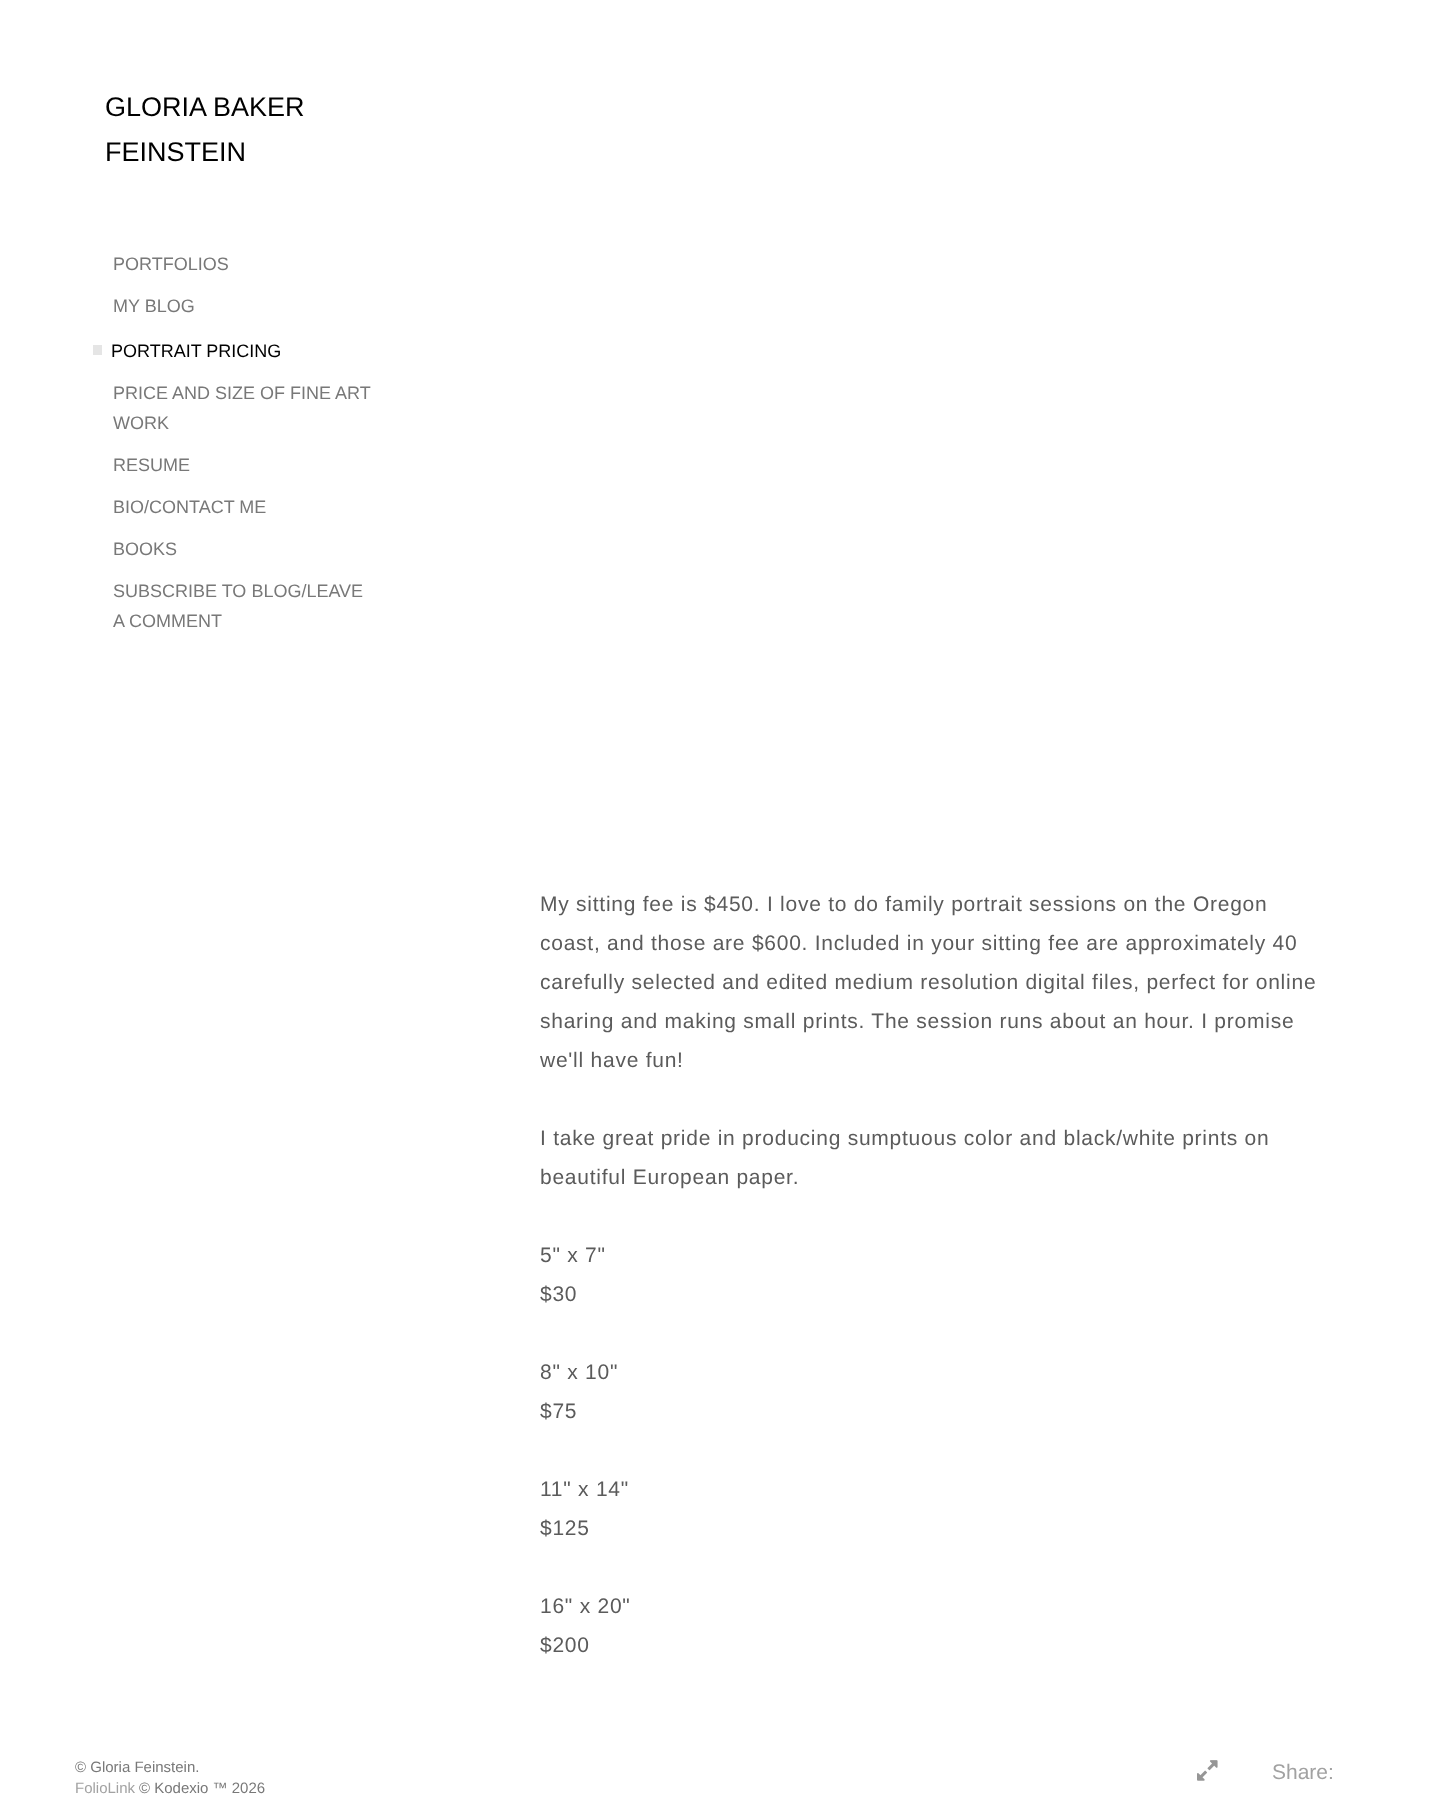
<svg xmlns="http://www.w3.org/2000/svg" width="1445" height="1816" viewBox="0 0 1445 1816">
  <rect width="100%" height="100%" fill="#ffffff"/>
  <text x="105" y="116" font-family="Liberation Sans" font-size="27" fill="#000000">GLORIA BAKER</text>
  <text x="105" y="161" font-family="Liberation Sans" font-size="27" fill="#000000">FEINSTEIN</text>
  <text x="113" y="270" font-family="Liberation Sans" font-size="18" fill="#787878">PORTFOLIOS</text>
  <text x="113" y="312" font-family="Liberation Sans" font-size="18" fill="#787878">MY BLOG</text>
  <rect x="93" y="345" width="9" height="10" fill="#e5e5e5"/>
  <text x="111" y="357" font-family="Liberation Sans" font-size="18" fill="#000000">PORTRAIT PRICING</text>
  <text x="113" y="399" font-family="Liberation Sans" font-size="18" fill="#787878">PRICE AND SIZE OF FINE ART</text>
  <text x="113" y="429" font-family="Liberation Sans" font-size="18" fill="#787878">WORK</text>
  <text x="113" y="471" font-family="Liberation Sans" font-size="18" fill="#787878">RESUME</text>
  <text x="113" y="513" font-family="Liberation Sans" font-size="18" fill="#787878">BIO/CONTACT ME</text>
  <text x="113" y="555" font-family="Liberation Sans" font-size="18" fill="#787878">BOOKS</text>
  <text x="113" y="597" font-family="Liberation Sans" font-size="18" fill="#787878">SUBSCRIBE TO BLOG/LEAVE</text>
  <text x="113" y="627" font-family="Liberation Sans" font-size="18" fill="#787878">A COMMENT</text>
  <text x="540" y="911" font-family="Liberation Sans" font-size="21" letter-spacing="0.75" fill="#5b5b5b">My sitting fee is $450. I love to do family portrait sessions on the Oregon</text>
  <text x="540" y="950" font-family="Liberation Sans" font-size="21" letter-spacing="0.75" fill="#5b5b5b">coast, and those are $600. Included in your sitting fee are approximately 40</text>
  <text x="540" y="989" font-family="Liberation Sans" font-size="21" letter-spacing="0.75" fill="#5b5b5b">carefully selected and edited medium resolution digital files, perfect for online</text>
  <text x="540" y="1028" font-family="Liberation Sans" font-size="21" letter-spacing="0.75" fill="#5b5b5b">sharing and making small prints. The session runs about an hour. I promise</text>
  <text x="540" y="1067" font-family="Liberation Sans" font-size="21" letter-spacing="0.75" fill="#5b5b5b">we'll have fun!</text>
  <text x="540" y="1145" font-family="Liberation Sans" font-size="21" letter-spacing="0.75" fill="#5b5b5b">I take great pride in producing sumptuous color and black/white prints on</text>
  <text x="540" y="1184" font-family="Liberation Sans" font-size="21" letter-spacing="0.75" fill="#5b5b5b">beautiful European paper.</text>
  <text x="540" y="1262" font-family="Liberation Sans" font-size="21" letter-spacing="0.75" fill="#5b5b5b">5" x 7"</text>
  <text x="540" y="1301" font-family="Liberation Sans" font-size="21" letter-spacing="0.75" fill="#5b5b5b">$30</text>
  <text x="540" y="1379" font-family="Liberation Sans" font-size="21" letter-spacing="0.75" fill="#5b5b5b">8" x 10"</text>
  <text x="540" y="1418" font-family="Liberation Sans" font-size="21" letter-spacing="0.75" fill="#5b5b5b">$75</text>
  <text x="540" y="1496" font-family="Liberation Sans" font-size="21" letter-spacing="0.75" fill="#5b5b5b">11" x 14"</text>
  <text x="540" y="1535" font-family="Liberation Sans" font-size="21" letter-spacing="0.75" fill="#5b5b5b">$125</text>
  <text x="540" y="1613" font-family="Liberation Sans" font-size="21" letter-spacing="0.75" fill="#5b5b5b">16" x 20"</text>
  <text x="540" y="1652" font-family="Liberation Sans" font-size="21" letter-spacing="0.75" fill="#5b5b5b">$200</text>
  <text x="75" y="1772" font-family="Liberation Sans" font-size="15" fill="#787878">© Gloria Feinstein.</text>
  <text x="75" y="1793" font-family="Liberation Sans" font-size="15" fill="#a2a2a2">FolioLink</text>
  <text x="139" y="1793" font-family="Liberation Sans" font-size="15" fill="#787878">© Kodexio ™ 2026</text>
  <image x="1197" y="1760" width="21" height="21" href="img1.png"/>
  <text x="1272" y="1779" font-family="Liberation Sans" font-size="21" fill="#a2a2a2">Share:</text>
</svg>
